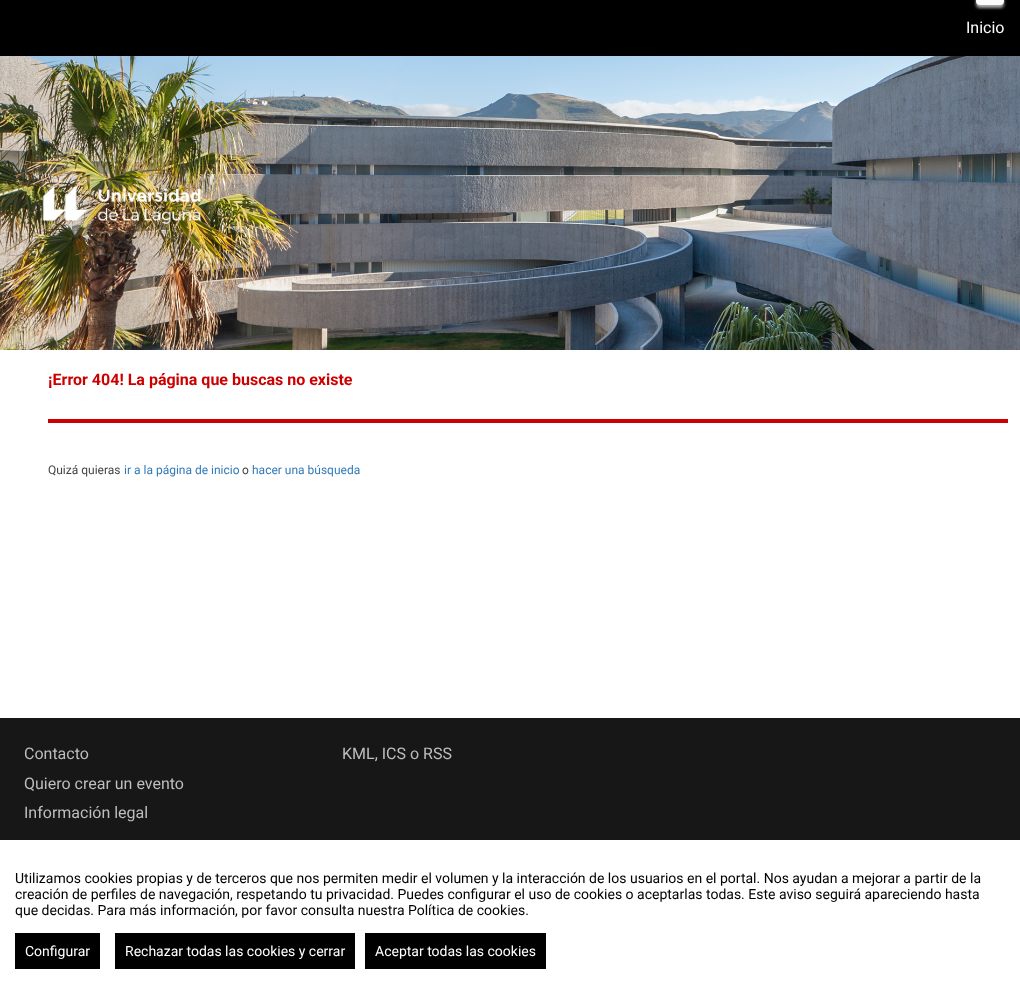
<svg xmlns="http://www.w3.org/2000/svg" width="1020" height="984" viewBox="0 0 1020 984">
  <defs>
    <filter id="blur1" x="-50%" y="-200%" width="200%" height="500%"><feGaussianBlur stdDeviation="1.5"/></filter>
  </defs>
  <rect width="100%" height="100%" fill="#ffffff"/>
  <rect x="0" y="0" width="1020" height="56" fill="#000000"/>
  <rect x="976" y="-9" width="28" height="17" rx="4" fill="#aaaaaa" filter="url(#blur1)"/>
  <rect x="976" y="-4" width="28" height="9" rx="4" fill="#fcfcfc"/>
  <image x="0" y="56" width="1020" height="294" href="img1.png"/>
  <text x="966" y="33" font-family="Roboto" font-size="16" fill="#ffffff">Inicio</text>
  <image x="42" y="186" width="159" height="39" href="img2.png"/>
  <rect x="48" y="419" width="960" height="4" fill="#cc0000"/>
  <text x="48" y="385" font-family="Roboto" font-size="16" font-weight="bold" fill="#cc0000">¡Error 404! La página que buscas no existe</text>
  <text x="48" y="474" font-family="Roboto" font-size="12" fill="#444444">Quizá quieras</text>
  <text x="124" y="474" font-family="Roboto" font-size="12" fill="#337ab7">ir a la página de inicio</text>
  <text x="242" y="474" font-family="Roboto" font-size="12" fill="#444444">o</text>
  <text x="252" y="474" font-family="Roboto" font-size="12" fill="#337ab7">hacer una búsqueda</text>
  <rect x="0" y="718" width="1020" height="122" fill="#171717"/>
  <text x="24" y="759" font-family="Roboto" font-size="16" fill="#bebebe">Contacto</text>
  <text x="24" y="789" font-family="Roboto" font-size="16" fill="#bebebe">Quiero crear un evento</text>
  <text x="24" y="818" font-family="Roboto" font-size="16" fill="#bebebe">Información legal</text>
  <text x="342" y="759" font-family="Roboto" font-size="16" fill="#bebebe">KML, ICS o RSS</text>
  <text x="15" y="883" font-family="Roboto" font-size="14" fill="#000000">Utilizamos cookies propias y de terceros que nos permiten medir el volumen y la interacción de los usuarios en el portal. Nos ayudan a mejorar a partir de la</text>
  <text x="15" y="899" font-family="Roboto" font-size="14" fill="#000000">creación de perfiles de navegación, respetando tu privacidad. Puedes configurar el uso de cookies o aceptarlas todas. Este aviso seguirá apareciendo hasta</text>
  <text x="15" y="915" font-family="Roboto" font-size="14" fill="#000000">que decidas. Para más información, por favor consulta nuestra Política de cookies.</text>
  <rect x="15" y="933" width="85" height="36" fill="#000000"/>
  <text x="25" y="956" font-family="Roboto" font-size="14" fill="#ffffff">Configurar</text>
  <rect x="115" y="933" width="240" height="36" fill="#000000"/>
  <text x="125" y="956" font-family="Roboto" font-size="14" fill="#ffffff">Rechazar todas las cookies y cerrar</text>
  <rect x="365" y="933" width="181" height="36" fill="#000000"/>
  <text x="375" y="956" font-family="Roboto" font-size="14" fill="#ffffff">Aceptar todas las cookies</text>
</svg>
